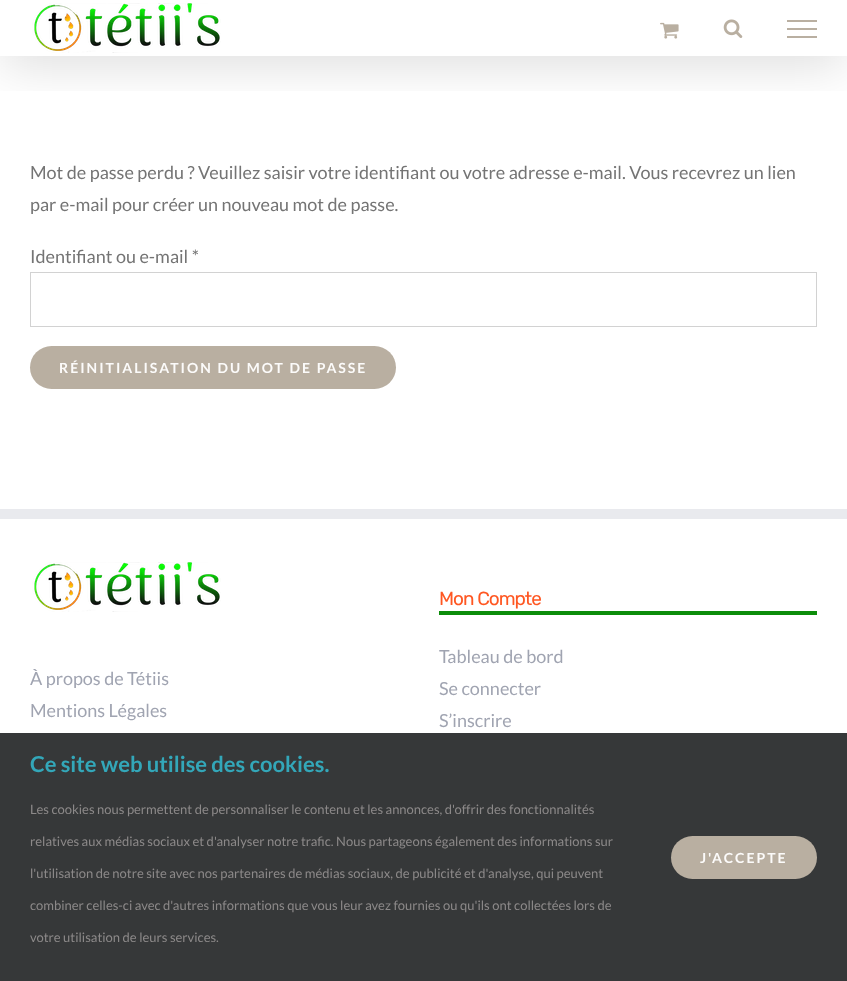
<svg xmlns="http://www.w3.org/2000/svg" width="847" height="981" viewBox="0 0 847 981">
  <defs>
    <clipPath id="clip1"><rect x="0" y="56" width="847" height="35"/></clipPath>
    <filter id="blur1" x="-50%" y="-200%" width="200%" height="500%"><feGaussianBlur stdDeviation="25"/></filter>
  </defs>
  <rect width="100%" height="100%" fill="#ffffff"/>
  <g clip-path="url(#clip1)">
    <rect x="2" y="12" width="843" height="52" fill="#000000" fill-opacity="0.14" filter="url(#blur1)"/>
  </g>
  <image x="32" y="3" width="189" height="50" href="img1.png"/>
  <image x="660" y="22" width="19" height="17" href="img2.png"/>
  <image x="723" y="19" width="20" height="19" href="img3.png"/>
  <rect x="787" y="20" width="30" height="2" fill="#b9afa1"/>
  <rect x="787" y="28" width="30" height="2" fill="#b9afa1"/>
  <rect x="787" y="36" width="30" height="2" fill="#b9afa1"/>
  <text x="30" y="179" font-family="Lato" font-size="18" fill="#747474">Mot de passe perdu ? Veuillez saisir votre identifiant ou votre adresse e-mail. Vous recevrez un lien</text>
  <text x="30" y="211" font-family="Lato" font-size="18" fill="#747474">par e-mail pour créer un nouveau mot de passe.</text>
  <text x="30" y="263" font-family="Lato" font-size="18" fill="#747474">Identifiant ou e-mail *</text>
  <rect x="30.5" y="272.5" width="786" height="54" fill="none" stroke="#d2d2d2"/>
  <rect x="30" y="346" width="366" height="43" rx="21.5" fill="#b9afa1"/>
  <text x="59" y="373" font-family="Lato" font-size="14" font-weight="bold" letter-spacing="2" fill="#fcfbfa">RÉINITIALISATION DU MOT DE PASSE</text>
  <rect x="0" y="509" width="847" height="10" fill="#e9eaee"/>
  <image x="32" y="562" width="189" height="50" href="img1.png"/>
  <text x="30" y="685" font-family="Lato" font-size="18" fill="#a0a4b1">À propos de Tétiis</text>
  <text x="30" y="717" font-family="Lato" font-size="18" fill="#a0a4b1">Mentions Légales</text>
  <rect x="439" y="611" width="378" height="4" fill="#0c8d0a"/>
  <text x="439" y="605" font-family="Rubik" font-size="19" font-weight="300" letter-spacing="-1" fill="#ff5722">Mon Compte</text>
  <text x="439" y="663" font-family="Lato" font-size="18" fill="#a0a4b1">Tableau de bord</text>
  <text x="439" y="695" font-family="Lato" font-size="18" fill="#a0a4b1">Se connecter</text>
  <text x="439" y="727" font-family="Lato" font-size="18" fill="#a0a4b1">S’inscrire</text>
  <rect x="0" y="733" width="847" height="248" fill="#363839"/>
  <text x="30" y="772" font-family="Lato" font-size="22" font-weight="bold" fill="#33a7b9">Ce site web utilise des cookies.</text>
  <text x="30" y="814" font-family="Lato" font-size="13" fill="#8c8989">Les cookies nous permettent de personnaliser le contenu et les annonces, d'offrir des fonctionnalités</text>
  <text x="30" y="846" font-family="Lato" font-size="13" fill="#8c8989">relatives aux médias sociaux et d'analyser notre trafic. Nous partageons également des informations sur</text>
  <text x="30" y="878" font-family="Lato" font-size="13" fill="#8c8989">l'utilisation de notre site avec nos partenaires de médias sociaux, de publicité et d'analyse, qui peuvent</text>
  <text x="30" y="910" font-family="Lato" font-size="13" fill="#8c8989">combiner celles-ci avec d'autres informations que vous leur avez fournies ou qu'ils ont collectées lors de</text>
  <text x="30" y="942" font-family="Lato" font-size="13" fill="#8c8989">votre utilisation de leurs services.</text>
  <rect x="671" y="836" width="146" height="43" rx="21.5" fill="#b9afa1"/>
  <text x="700" y="863" font-family="Lato" font-size="14" font-weight="bold" letter-spacing="2" fill="#fcfbfa">J'ACCEPTE</text>
</svg>
